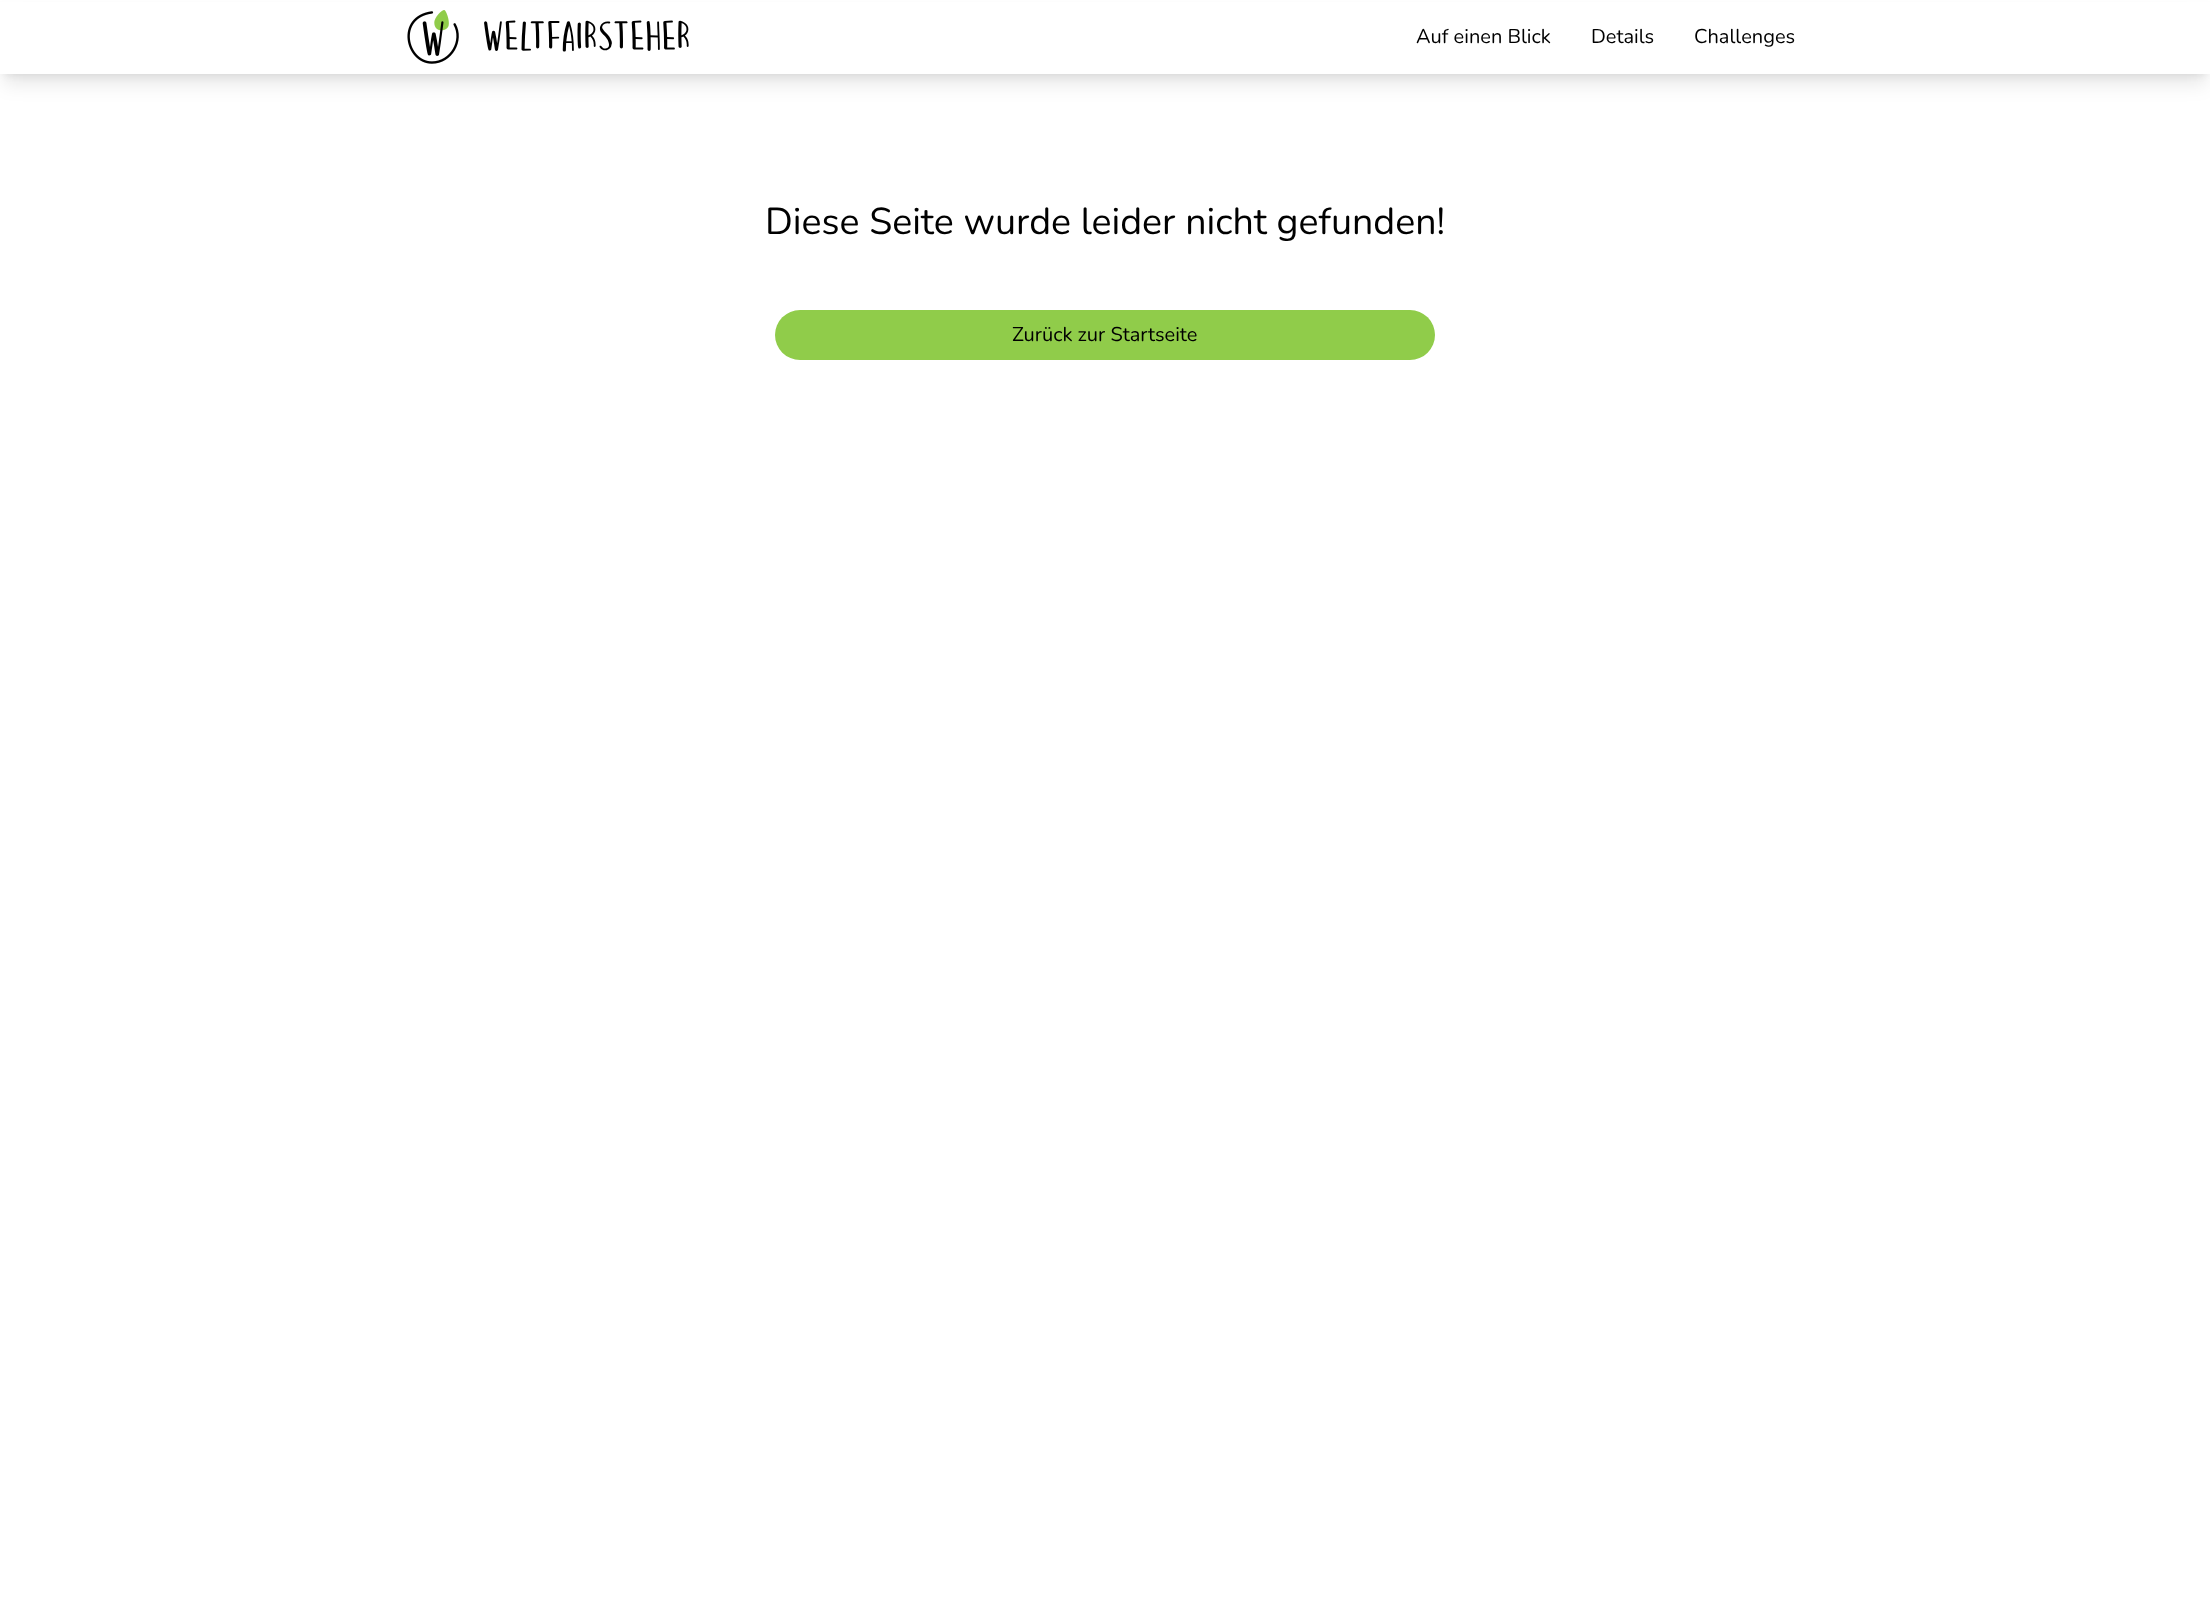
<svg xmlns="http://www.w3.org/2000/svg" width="2210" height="1611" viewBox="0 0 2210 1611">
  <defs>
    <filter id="blur1" x="-50%" y="-200%" width="200%" height="500%"><feGaussianBlur stdDeviation="4"/></filter>
    <filter id="blur2" x="-50%" y="-200%" width="200%" height="500%"><feGaussianBlur stdDeviation="9.5"/></filter>
  </defs>
  <rect width="100%" height="100%" fill="#ffffff"/>
  <rect x="5" y="10" width="2200" height="64" fill="#000000" fill-opacity="0.1" filter="url(#blur1)"/>
  <rect x="4" y="16" width="2202" height="67" fill="#000000" fill-opacity="0.1" filter="url(#blur2)"/>
  <rect x="0" y="2" width="2210" height="72" fill="#ffffff"/>
  <image x="407" y="10" width="52" height="54" href="img1.png"/>
  <text x="486" y="51" font-family="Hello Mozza" font-size="45" letter-spacing="2.25" fill="#000000">weltfairsteher</text>
  <text x="1416" y="43" font-family="Nunito" font-size="20" font-weight="200" fill="#000000">Auf einen Blick</text>
  <text x="1591" y="43" font-family="Nunito" font-size="20" font-weight="200" fill="#000000">Details</text>
  <text x="1694" y="43" font-family="Nunito" font-size="20" font-weight="200" fill="#000000">Challenges</text>
  <text x="765" y="234" font-family="Nunito" font-size="37.5" font-weight="200" fill="#000000">Diese Seite wurde leider nicht gefunden!</text>
  <rect x="775" y="310" width="660" height="50" rx="25" fill="#90cc4a"/>
  <text x="1012" y="341" font-family="Nunito" font-size="20" font-weight="200" fill="#000000">Zurück zur Startseite</text>
</svg>
